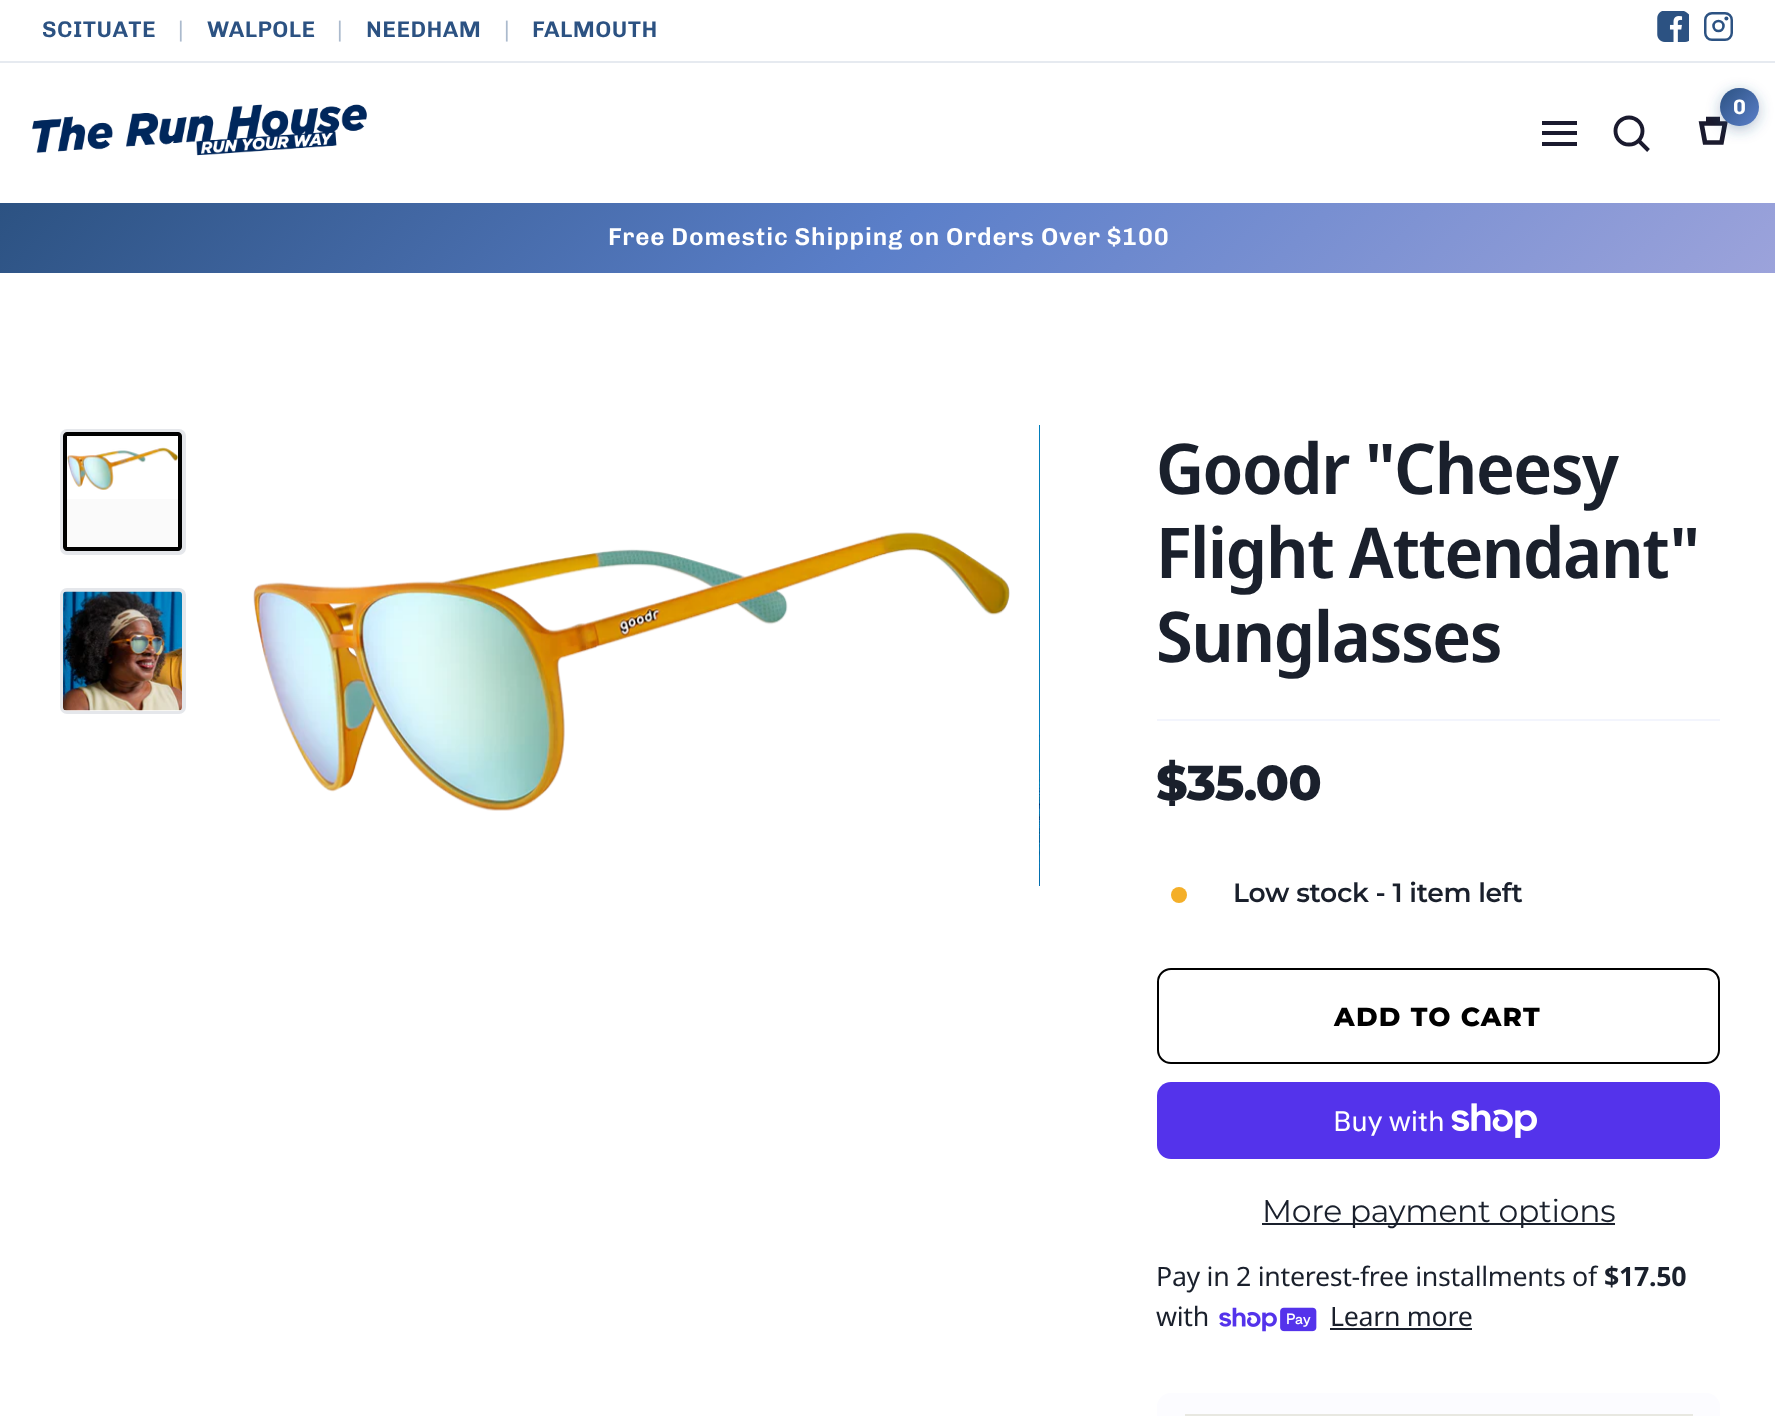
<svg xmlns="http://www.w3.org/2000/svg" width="1775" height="1416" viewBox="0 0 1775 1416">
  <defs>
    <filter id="blur1" x="-50%" y="-200%" width="200%" height="500%"><feGaussianBlur stdDeviation="7"/></filter>
    <linearGradient id="g1" gradientUnits="userSpaceOnUse" x1="1720" y1="88" x2="1759" y2="126"><stop offset="0" stop-color="#2c5282"/><stop offset="1" stop-color="#5b7fc9"/></linearGradient>
    <linearGradient id="g2" gradientUnits="userSpaceOnUse" x1="427" y1="-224" x2="1350" y2="700"><stop offset="0" stop-color="#2c5282"/><stop offset="0.5" stop-color="#5b7fc9"/><stop offset="1" stop-color="#9ca3db"/></linearGradient>
  </defs>
  <rect width="100%" height="100%" fill="#ffffff"/>
  <rect x="0" y="61" width="1775" height="2" fill="#e6eaf0"/>
  <text x="42" y="37" font-family="Chivo" font-size="22.75" font-weight="600" letter-spacing="0.5" fill="#2c5282">SCITUATE</text>
  <text x="178" y="37" font-family="Chivo" font-size="22.75" letter-spacing="0.8" fill="#abbacd">|</text>
  <text x="207" y="37" font-family="Chivo" font-size="22.75" font-weight="600" letter-spacing="0.5" fill="#2c5282">WALPOLE</text>
  <text x="337" y="37" font-family="Chivo" font-size="22.75" letter-spacing="0.8" fill="#abbacd">|</text>
  <text x="366" y="37" font-family="Chivo" font-size="22.75" font-weight="600" letter-spacing="0.5" fill="#2c5282">NEEDHAM</text>
  <text x="504" y="37" font-family="Chivo" font-size="22.75" letter-spacing="0.8" fill="#abbacd">|</text>
  <text x="532" y="37" font-family="Chivo" font-size="22.75" font-weight="600" letter-spacing="0.5" fill="#2c5282">FALMOUTH</text>
  <image x="1657" y="11" width="32" height="31" href="img1.png"/>
  <rect x="1705.25" y="13.25" width="26.5" height="26.5" rx="6.75" fill="none" stroke="#2c5282" stroke-width="2.5"/>
  <circle cx="1718.5" cy="26" r="5" fill="none" stroke="#2c5282" stroke-width="2.6"/>
  <circle cx="1726.4" cy="18.4" r="2" fill="#2c5282"/>
  <image x="32" y="104" width="335" height="52" href="img2.png"/>
  <path d="M1701.5 123.5H1725L1721.5 142.5H1705ZM1720 119H1706" fill="none" stroke="#1a1a2e" stroke-width="4.7"/>
  <rect x="1720" y="91" width="39" height="39" rx="19.5" fill="#2c5282" fill-opacity="0.35" filter="url(#blur1)"/>
  <rect x="1720" y="88" width="39" height="38" rx="19" fill="url(#g1)"/>
  <text x="1733" y="114" font-family="Chivo" font-size="21" font-weight="bold" letter-spacing="0.8" fill="#ffffff">0</text>
  <circle cx="1629" cy="131" r="13.5" fill="none" stroke="#1a1a2e" stroke-width="3.9"/>
  <path d="M1638.5 140.5L1648.5 150.5" fill="none" stroke="#1a1a2e" stroke-width="3.9"/>
  <rect x="1542" y="121" width="35" height="4" fill="#1a1a2e"/>
  <rect x="1542" y="131" width="35" height="4" fill="#1a1a2e"/>
  <rect x="1542" y="142" width="35" height="4" fill="#1a1a2e"/>
  <rect x="0" y="203" width="1775" height="70" fill="url(#g2)"/>
  <text x="608" y="245" font-family="Chivo" font-size="24.5" font-weight="600" letter-spacing="0.8" fill="#ffffff">Free Domestic Shipping on Orders Over $100</text>
  <rect x="62" y="431" width="122" height="122" rx="5" fill="#fafafa" stroke="#e5e7eb" stroke-width="4"/>
  <path d="M67 432H178C180 432 182 434 182 436V499H63V436C63 434 65 432 67 432Z" fill="#ffffff"/>
  <image x="67" y="447" width="111" height="43" href="img3.png"/>
  <path d="M67 432C65 432 63 434 63 436V547C63 549 65 551 67 551H178C180 551 182 549 182 547V436C182 434 180 432 178 432ZM67 436V547H178V436Z" fill="#000000" fill-rule="evenodd"/>
  <rect x="62" y="590" width="122" height="122" rx="5" fill="none" stroke="#e5e7eb" stroke-width="4"/>
  <rect x="63" y="592" width="119" height="119" rx="4" fill="#ffffff"/>
  <image x="63" y="591" width="119" height="120" href="img4.png"/>
  <image x="253" y="532" width="757" height="279" href="img5.png"/>
  <image x="1039" y="425" width="1" height="461" href="img6.png"/>
  <text x="1156" y="494" font-family="Noto Sans Display" font-size="70" font-weight="600" letter-spacing="-1.4" fill="#1a202c">Goodr "Cheesy</text>
  <text x="1156" y="578" font-family="Noto Sans Display" font-size="70" font-weight="600" letter-spacing="-1.4" fill="#1a202c">Flight Attendant"</text>
  <text x="1156" y="662" font-family="Noto Sans Display" font-size="70" font-weight="600" letter-spacing="-1.4" fill="#1a202c">Sunglasses</text>
  <rect x="1157" y="719" width="563" height="2" fill="#f3f5fd"/>
  <text x="1156" y="800" font-family="Montserrat" font-size="49" font-weight="800" letter-spacing="-1" fill="#1a202c">$35.00</text>
  <circle cx="1179" cy="895" r="8" fill="#f4af29"/>
  <text x="1233" y="902" font-family="Montserrat" font-size="26.6" font-weight="600" letter-spacing="-0.3" fill="#1a202c">Low stock - 1 item left</text>
  <rect x="1158" y="969" width="561" height="94" rx="13" fill="none" stroke="#000000" stroke-width="2"/>
  <text x="1334" y="1026" font-family="Montserrat" font-size="26.25" font-weight="800" letter-spacing="1.25" fill="#000000">ADD TO CART</text>
  <rect x="1157" y="1082" width="563" height="77" rx="14" fill="#5433eb"/>
  <text x="1333" y="1131" font-family="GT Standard" font-size="28" letter-spacing="-0.3" fill="#ffffff">Buy with</text>
  <image x="1451" y="1103" width="86" height="35" href="img7.png"/>
  <rect x="1262" y="1223" width="353" height="2" fill="#1a202c"/>
  <text x="1262" y="1222" font-family="Montserrat" font-size="31.5" letter-spacing="-0.3" fill="#1a202c">More payment options</text>
  <text x="1156" y="1286" font-family="Noto Sans" font-size="26.75" letter-spacing="-0.3" fill="#1a202c">Pay in 2 interest-free installments of</text>
  <text x="1604" y="1286" font-family="Noto Sans" font-size="26.75" font-weight="bold" letter-spacing="-0.3" fill="#1a202c">$17.50</text>
  <text x="1156" y="1326" font-family="Noto Sans" font-size="26.75" letter-spacing="-0.3" fill="#1a202c">with</text>
  <image x="1219" y="1307" width="98" height="25" href="img8.png"/>
  <text x="1330" y="1326" font-family="Noto Sans" font-size="26.75" letter-spacing="-0.3" fill="#1a202c">Learn more</text>
  <rect x="1330" y="1328" width="142" height="2" fill="#1a202c"/>
  <rect x="1157" y="1393" width="563" height="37" rx="14" fill="#fcfcff"/>
  <rect x="1185" y="1414" width="508" height="2" fill="#e8e8e1"/>
</svg>
